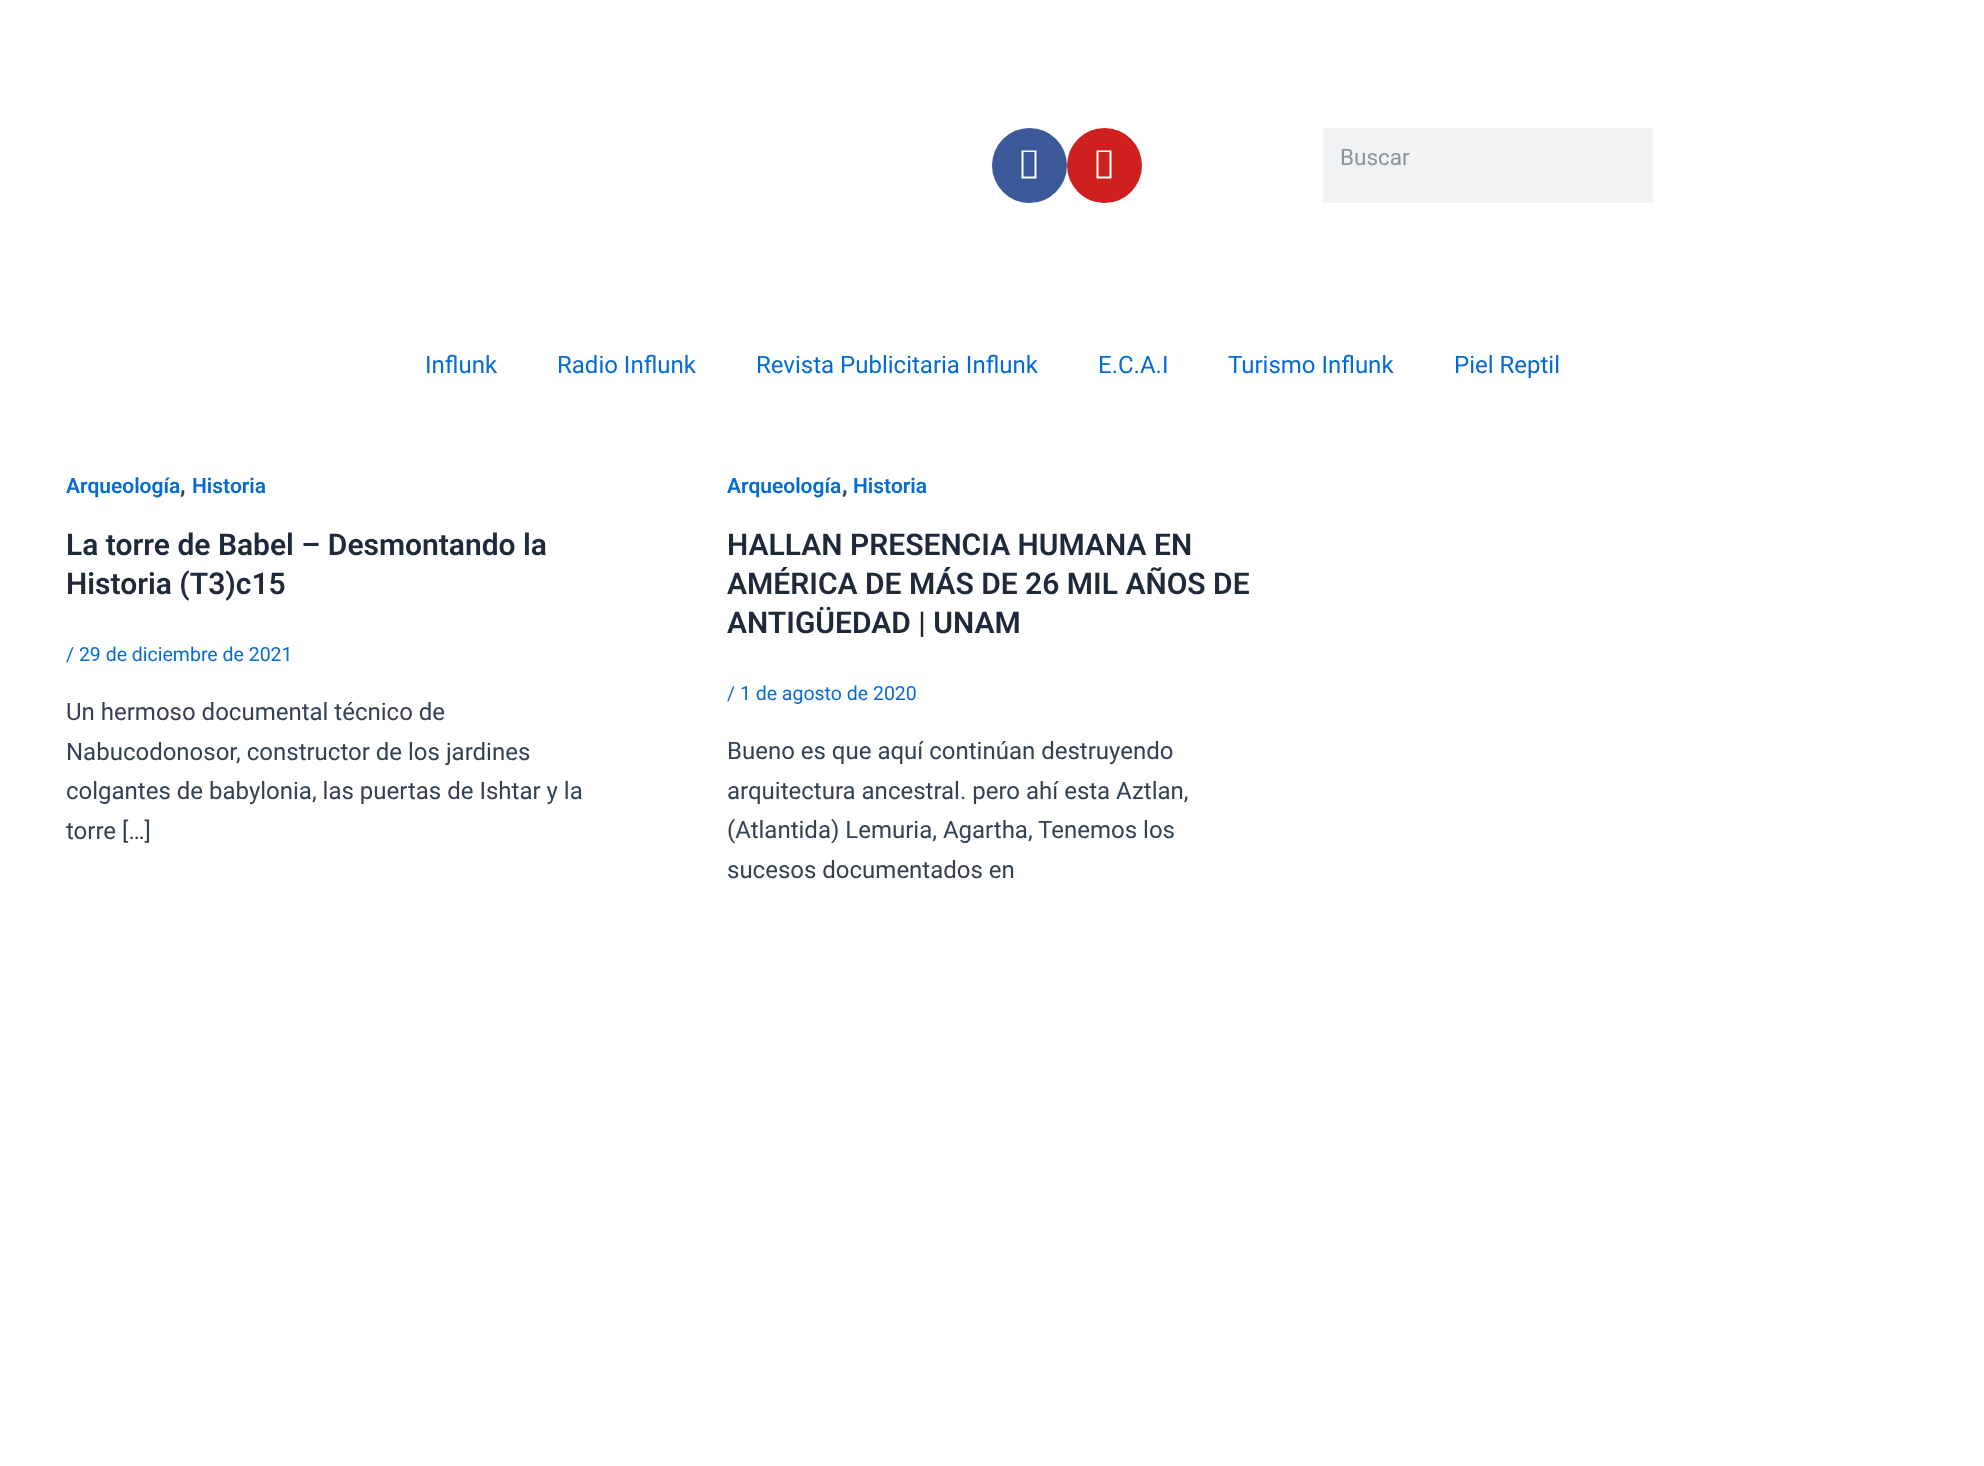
<svg xmlns="http://www.w3.org/2000/svg" width="1984" height="1466" viewBox="0 0 1984 1466">
  <rect width="100%" height="100%" fill="#ffffff"/>
  <circle cx="1029.5" cy="165.5" r="37.5" fill="#3b5998"/>
  <path d="M1021.5 178.5V150.5H1036.5V178.5ZM1023.5 176.5H1034.5V152H1023.5Z" fill="#ffffff"/>
  <circle cx="1104.5" cy="165.5" r="37.5" fill="#cd201f"/>
  <path d="M1096.5 178.5V150.5H1111.5V178.5ZM1098.5 176.5H1109.5V152H1098.5Z" fill="#ffffff"/>
  <rect x="1323" y="128" width="330" height="75" fill="#f1f2f3"/>
  <text x="1340" y="165" font-family="Roboto" font-size="22.5" fill="#8b94a0">Buscar</text>
  <text x="425" y="373" font-family="Roboto" font-size="24" fill="#046bd2">Influnk</text>
  <text x="557" y="373" font-family="Roboto" font-size="24" fill="#046bd2">Radio Influnk</text>
  <text x="756" y="373" font-family="Roboto" font-size="24" fill="#046bd2">Revista Publicitaria Influnk</text>
  <text x="1098" y="373" font-family="Roboto" font-size="24" fill="#046bd2">E.C.A.I</text>
  <text x="1228" y="373" font-family="Roboto" font-size="24" fill="#046bd2">Turismo Influnk</text>
  <text x="1454" y="373" font-family="Roboto" font-size="24" fill="#046bd2">Piel Reptil</text>
  <text x="66" y="493" font-family="Roboto" font-size="21" font-weight="600" fill="#046bd2">Arqueología</text>
  <text x="180" y="493" font-family="Roboto" font-size="24" font-weight="600" fill="#334155">,</text>
  <text x="192" y="493" font-family="Roboto" font-size="21" font-weight="600" fill="#046bd2">Historia</text>
  <text x="66" y="555" font-family="Roboto" font-size="30" font-weight="600" fill="#1e293b">La torre de Babel – Desmontando la</text>
  <text x="66" y="594" font-family="Roboto" font-size="30" font-weight="600" fill="#1e293b">Historia (T3)c15</text>
  <text x="66" y="661" font-family="Roboto" font-size="19.5" fill="#046bd2">/ 29 de diciembre de 2021</text>
  <text x="66" y="720" font-family="Roboto" font-size="24" fill="#334155">Un hermoso documental técnico de</text>
  <text x="66" y="760" font-family="Roboto" font-size="24" fill="#334155">Nabucodonosor, constructor de los jardines</text>
  <text x="66" y="799" font-family="Roboto" font-size="24" fill="#334155">colgantes de babylonia, las puertas de Ishtar y la</text>
  <text x="66" y="839" font-family="Roboto" font-size="24" fill="#334155">torre […]</text>
  <text x="727" y="493" font-family="Roboto" font-size="21" font-weight="600" fill="#046bd2">Arqueología</text>
  <text x="842" y="493" font-family="Roboto" font-size="24" font-weight="600" fill="#334155">,</text>
  <text x="853" y="493" font-family="Roboto" font-size="21" font-weight="600" fill="#046bd2">Historia</text>
  <text x="727" y="555" font-family="Roboto" font-size="30" font-weight="600" fill="#1e293b">HALLAN PRESENCIA HUMANA EN</text>
  <text x="727" y="594" font-family="Roboto" font-size="30" font-weight="600" fill="#1e293b">AMÉRICA DE MÁS DE 26 MIL AÑOS DE</text>
  <text x="727" y="633" font-family="Roboto" font-size="30" font-weight="600" fill="#1e293b">ANTIGÜEDAD | UNAM</text>
  <text x="727" y="700" font-family="Roboto" font-size="19.5" fill="#046bd2">/ 1 de agosto de 2020</text>
  <text x="727" y="759" font-family="Roboto" font-size="24" fill="#334155">Bueno es que aquí continúan destruyendo</text>
  <text x="727" y="799" font-family="Roboto" font-size="24" fill="#334155">arquitectura ancestral. pero ahí esta Aztlan,</text>
  <text x="727" y="838" font-family="Roboto" font-size="24" fill="#334155">(Atlantida) Lemuria, Agartha, Tenemos los</text>
  <text x="727" y="878" font-family="Roboto" font-size="24" fill="#334155">sucesos documentados en</text>
</svg>
